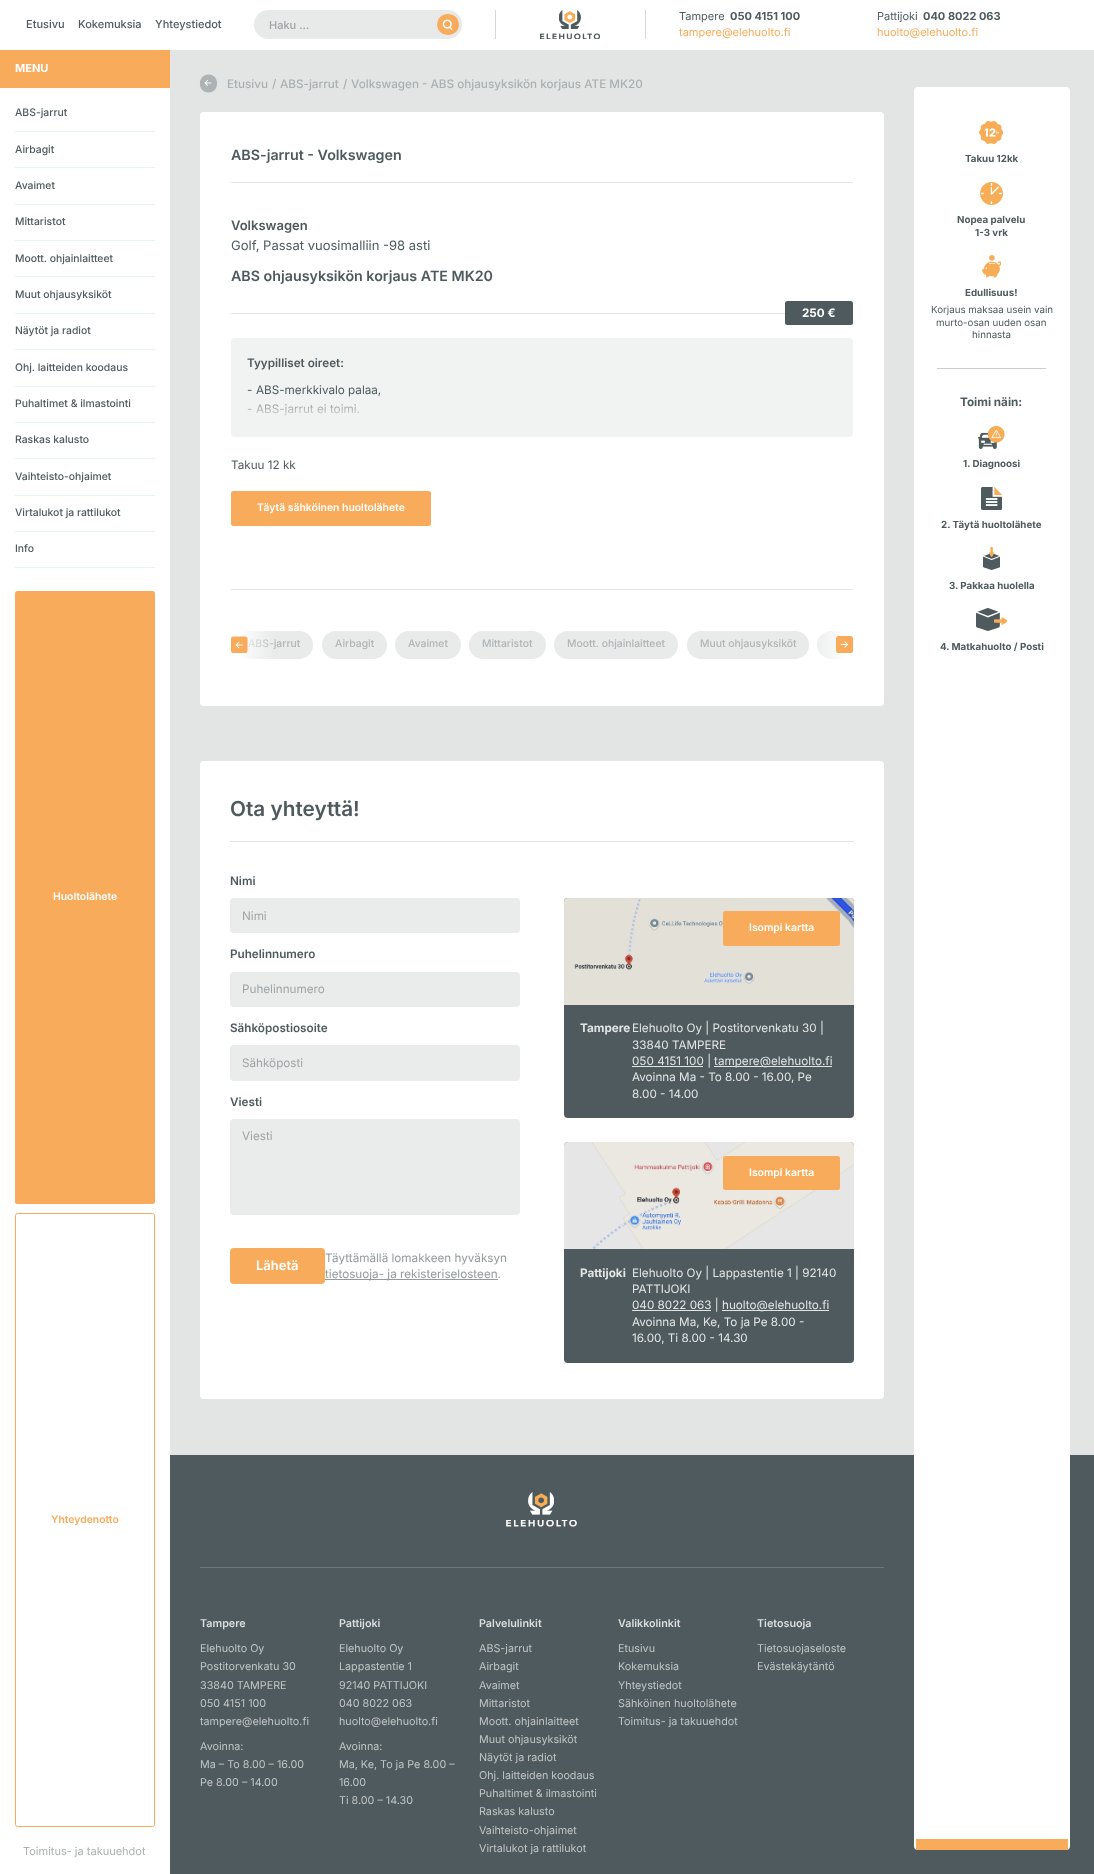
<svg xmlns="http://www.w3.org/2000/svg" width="1094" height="1874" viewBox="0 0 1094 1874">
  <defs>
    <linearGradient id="g1" gradientUnits="userSpaceOnUse" x1="532" y1="394" x2="532" y2="434"><stop offset="0" stop-color="#f1f2f2" stop-opacity="0"/><stop offset="0.19" stop-color="#f1f2f2" stop-opacity="0.36"/><stop offset="0.45" stop-color="#f1f2f2" stop-opacity="0.69"/><stop offset="0.71" stop-color="#f1f2f2"/></linearGradient>
    <linearGradient id="g2" gradientUnits="userSpaceOnUse" x1="231" y1="645" x2="276" y2="645"><stop offset="0.18" stop-color="#ffffff"/><stop offset="0.4" stop-color="#ffffff" stop-opacity="0.67"/><stop offset="1" stop-color="#ffffff" stop-opacity="0"/></linearGradient>
    <linearGradient id="g3" gradientUnits="userSpaceOnUse" x1="853" y1="645" x2="807" y2="645"><stop offset="0.18" stop-color="#ffffff"/><stop offset="0.4" stop-color="#ffffff" stop-opacity="0.67"/><stop offset="1" stop-color="#ffffff" stop-opacity="0"/></linearGradient>
  </defs>
  <rect width="100%" height="100%" fill="#e3e5e5"/>
  <rect x="0" y="0" width="1094" height="50" fill="#ffffff"/>
  <text x="26" y="28" font-family="Inter" font-size="11" font-weight="500" fill="#4e5a5d">Etusivu</text>
  <text x="78" y="28" font-family="Inter" font-size="11" font-weight="500" fill="#4e5a5d">Kokemuksia</text>
  <text x="155" y="28" font-family="Inter" font-size="11" font-weight="500" fill="#4e5a5d">Yhteystiedot</text>
  <rect x="254" y="10" width="208" height="29" rx="14.5" fill="#e8eaea"/>
  <text x="269" y="29" font-family="Inter" font-size="11" font-weight="500" fill="#9ea4a5">Haku …</text>
  <rect x="437" y="14" width="22" height="21" rx="10.5" fill="#f8ab5a"/>
  <image x="442" y="19" width="11" height="11" href="img1.png"/>
  <rect x="645" y="10" width="1" height="29" fill="#d5d7d8"/>
  <rect x="495" y="10" width="1" height="29" fill="#d5d7d8"/>
  <image x="540" y="10" width="60" height="29" href="img2.png"/>
  <text x="679" y="20" font-family="Inter" font-size="11" fill="#4e5a5d">Tampere</text>
  <text x="730" y="20" font-family="Inter" font-size="11" font-weight="bold" fill="#4e5a5d">050 4151 100</text>
  <text x="679" y="36" font-family="Inter" font-size="11" fill="#f8ab5a">tampere@elehuolto.fi</text>
  <text x="877" y="20" font-family="Inter" font-size="11" fill="#4e5a5d">Pattijoki</text>
  <text x="923" y="20" font-family="Inter" font-size="11" font-weight="bold" fill="#4e5a5d">040 8022 063</text>
  <text x="877" y="36" font-family="Inter" font-size="11" fill="#f8ab5a">huolto@elehuolto.fi</text>
  <rect x="0" y="88" width="170" height="1786" fill="#ffffff"/>
  <rect x="0" y="50" width="170" height="38" fill="#f8ab5a"/>
  <text x="15" y="72" font-family="Inter" font-size="11" font-weight="bold" fill="#ffffff">MENU</text>
  <rect x="15" y="131" width="140" height="1" fill="#e8f3f6"/>
  <text x="15" y="116" font-family="Inter" font-size="10.4" font-weight="500" fill="#4e5a5d">ABS-jarrut</text>
  <rect x="15" y="167" width="140" height="1" fill="#e8f3f6"/>
  <text x="15" y="153" font-family="Inter" font-size="10.4" font-weight="500" fill="#4e5a5d">Airbagit</text>
  <rect x="15" y="204" width="140" height="1" fill="#e8f3f6"/>
  <text x="15" y="189" font-family="Inter" font-size="10.4" font-weight="500" fill="#4e5a5d">Avaimet</text>
  <rect x="15" y="240" width="140" height="1" fill="#e8f3f6"/>
  <text x="15" y="225" font-family="Inter" font-size="10.4" font-weight="500" fill="#4e5a5d">Mittaristot</text>
  <rect x="15" y="276" width="140" height="1" fill="#e8f3f6"/>
  <text x="15" y="262" font-family="Inter" font-size="10.4" font-weight="500" fill="#4e5a5d">Moott. ohjainlaitteet</text>
  <rect x="15" y="313" width="140" height="1" fill="#e8f3f6"/>
  <text x="15" y="298" font-family="Inter" font-size="10.4" font-weight="500" fill="#4e5a5d">Muut ohjausyksiköt</text>
  <rect x="15" y="349" width="140" height="1" fill="#e8f3f6"/>
  <text x="15" y="334" font-family="Inter" font-size="10.4" font-weight="500" fill="#4e5a5d">Näytöt ja radiot</text>
  <rect x="15" y="386" width="140" height="1" fill="#e8f3f6"/>
  <text x="15" y="371" font-family="Inter" font-size="10.4" font-weight="500" fill="#4e5a5d">Ohj. laitteiden koodaus</text>
  <rect x="15" y="422" width="140" height="1" fill="#e8f3f6"/>
  <text x="15" y="407" font-family="Inter" font-size="10.4" font-weight="500" fill="#4e5a5d">Puhaltimet &amp; ilmastointi</text>
  <rect x="15" y="458" width="140" height="1" fill="#e8f3f6"/>
  <text x="15" y="443" font-family="Inter" font-size="10.4" font-weight="500" fill="#4e5a5d">Raskas kalusto</text>
  <rect x="15" y="495" width="140" height="1" fill="#e8f3f6"/>
  <text x="15" y="480" font-family="Inter" font-size="10.4" font-weight="500" fill="#4e5a5d">Vaihteisto-ohjaimet</text>
  <rect x="15" y="531" width="140" height="1" fill="#e8f3f6"/>
  <text x="15" y="516" font-family="Inter" font-size="10.4" font-weight="500" fill="#4e5a5d">Virtalukot ja rattilukot</text>
  <rect x="15" y="567" width="140" height="1" fill="#e8f3f6"/>
  <text x="15" y="552" font-family="Inter" font-size="10.4" font-weight="500" fill="#4e5a5d">Info</text>
  <rect x="15" y="591" width="140" height="613" rx="2.5" fill="#f8ab5a"/>
  <text x="53" y="900" font-family="Inter" font-size="10.4" font-weight="600" fill="#ffffff">Huoltolähete</text>
  <rect x="15.5" y="1213.5" width="139" height="613" rx="2" fill="none" stroke="#f8ab5a"/>
  <text x="51" y="1523" font-family="Inter" font-size="10.4" font-weight="600" fill="#f8ab5a">Yhteydenotto</text>
  <text x="23" y="1855" font-family="Inter" font-size="11" fill="#aab0b1">Toimitus- ja takuuehdot</text>
  <path d="M208.5 92.5C197 92.5 197 74.5 208.5 74.5C220 74.5 220 92.5 208.5 92.5Z" fill="#adb3b4"/>
  <image x="204" y="80" width="8" height="6" href="img3.png"/>
  <text x="227" y="88" font-family="Inter" font-size="11.7" font-weight="500" fill="#aab0b1">Etusivu</text>
  <text x="272" y="88" font-family="Inter" font-size="11.7" font-weight="500" fill="#aab0b1">/</text>
  <text x="280" y="88" font-family="Inter" font-size="11.7" font-weight="500" fill="#aab0b1">ABS-jarrut</text>
  <text x="343" y="88" font-family="Inter" font-size="11.7" font-weight="500" fill="#aab0b1">/</text>
  <text x="351" y="88" font-family="Inter" font-size="11.7" font-weight="500" fill="#aab0b1">Volkswagen - ABS ohjausyksikön korjaus ATE MK20</text>
  <rect x="200" y="112" width="684" height="594" rx="4" fill="#ffffff"/>
  <text x="231" y="160" font-family="Inter" font-size="14.25" font-weight="600" fill="#4e5a5d">ABS-jarrut - Volkswagen</text>
  <rect x="231" y="182" width="622" height="1" fill="#e3e5e5"/>
  <text x="231" y="230" font-family="Inter" font-size="13" font-weight="600" fill="#4e5a5d">Volkswagen</text>
  <text x="231" y="250" font-family="Inter" font-size="13" fill="#4e5a5d">Golf, Passat vuosimalliin -98 asti</text>
  <text x="231" y="281" font-family="Inter" font-size="14.25" font-weight="600" fill="#4e5a5d">ABS ohjausyksikön korjaus ATE MK20</text>
  <rect x="231" y="313" width="554" height="1" fill="#e3e5e5"/>
  <rect x="785" y="301" width="68" height="24" rx="2.5" fill="#4e5a5d"/>
  <text x="802" y="317" font-family="Inter" font-size="11.7" font-weight="bold" fill="#ffffff">250 €</text>
  <rect x="231" y="338" width="622" height="99" rx="4" fill="#f1f2f2"/>
  <text x="247" y="367" font-family="Inter" font-size="11.7" font-weight="600" fill="#4e5a5d">Tyypilliset oireet:</text>
  <text x="247" y="394" font-family="Inter" font-size="11.7" fill="#4e5a5d">-</text>
  <text x="256" y="394" font-family="Inter" font-size="11.7" fill="#4e5a5d">ABS-merkkivalo palaa,</text>
  <text x="247" y="413" font-family="Inter" font-size="11.7" fill="#4e5a5d">-</text>
  <text x="256" y="413" font-family="Inter" font-size="11.7" fill="#4e5a5d">ABS-jarrut ei toimi.</text>
  <rect x="247" y="394" width="133" height="22" fill="url(#g1)"/>
  <text x="231" y="469" font-family="Inter" font-size="11.7" fill="#4e5a5d">Takuu 12 kk</text>
  <rect x="231" y="491" width="200" height="35" rx="2.5" fill="#f8ab5a"/>
  <text x="257" y="511" font-family="Inter" font-size="10.4" font-weight="600" fill="#ffffff">Täytä sähköinen huoltolähete</text>
  <rect x="231" y="589" width="622" height="1" fill="#e3e5e5"/>
  <rect x="235" y="631" width="78" height="28" rx="14" fill="#e9eaea"/>
  <text x="248" y="647" font-family="Inter" font-size="10.4" font-weight="500" fill="#b0b5b6">ABS-jarrut</text>
  <rect x="235" y="631" width="40" height="28" fill="url(#g2)"/>
  <path d="M831 631H853V659H831C823.5 659 817 652.5 817 645C817 637.5 823.5 631 831 631Z" fill="#e9eaea"/>
  <rect x="817" y="631" width="36" height="28" fill="url(#g3)"/>
  <path d="M245.5 653H233C232 653 231 652 231 651V638.5C231 637.5 232 636.5 233 636.5H245.5C246.5 636.5 247.5 637.5 247.5 638.5V651C247.5 652 246.5 653 245.5 653Z" fill="#f8ab5a"/>
  <image x="235" y="641" width="8" height="8" href="img4.png"/>
  <rect x="322" y="631" width="65" height="28" rx="14" fill="#e9eaea"/>
  <text x="335" y="647" font-family="Inter" font-size="10.4" font-weight="500" fill="#b0b5b6">Airbagit</text>
  <rect x="395" y="631" width="66" height="28" rx="14" fill="#e9eaea"/>
  <text x="408" y="647" font-family="Inter" font-size="10.4" font-weight="500" fill="#b0b5b6">Avaimet</text>
  <rect x="469" y="631" width="77" height="28" rx="14" fill="#e9eaea"/>
  <text x="482" y="647" font-family="Inter" font-size="10.4" font-weight="500" fill="#b0b5b6">Mittaristot</text>
  <rect x="554" y="631" width="124" height="28" rx="14" fill="#e9eaea"/>
  <text x="567" y="647" font-family="Inter" font-size="10.4" font-weight="500" fill="#b0b5b6">Moott. ohjainlaitteet</text>
  <rect x="687" y="631" width="122" height="28" rx="14" fill="#e9eaea"/>
  <text x="700" y="647" font-family="Inter" font-size="10.4" font-weight="500" fill="#b0b5b6">Muut ohjausyksiköt</text>
  <rect x="836" y="636" width="17" height="17" rx="2.5" fill="#f8ab5a"/>
  <image x="840" y="641" width="9" height="7" href="img5.png"/>
  <rect x="200" y="761" width="684" height="638" rx="4" fill="#ffffff"/>
  <text x="230" y="816" font-family="Inter" font-size="20.75" font-weight="600" fill="#4e5a5d">Ota yhteyttä!</text>
  <rect x="230" y="841" width="624" height="1" fill="#e3e5e5"/>
  <text x="230" y="885" font-family="Inter" font-size="11.7" font-weight="600" fill="#4e5a5d">Nimi</text>
  <rect x="230" y="898" width="290" height="35" rx="4" fill="#eaebeb"/>
  <text x="242" y="920" font-family="Inter" font-size="11.7" fill="#9ea4a5">Nimi</text>
  <text x="230" y="958" font-family="Inter" font-size="11.7" font-weight="600" fill="#4e5a5d">Puhelinnumero</text>
  <rect x="230" y="972" width="290" height="35" rx="4" fill="#eaebeb"/>
  <text x="242" y="993" font-family="Inter" font-size="11.7" fill="#9ea4a5">Puhelinnumero</text>
  <text x="230" y="1032" font-family="Inter" font-size="11.7" font-weight="600" fill="#4e5a5d">Sähköpostiosoite</text>
  <rect x="230" y="1045" width="290" height="36" rx="4" fill="#eaebeb"/>
  <text x="242" y="1067" font-family="Inter" font-size="11.7" fill="#9ea4a5">Sähköposti</text>
  <text x="230" y="1106" font-family="Inter" font-size="11.7" font-weight="600" fill="#4e5a5d">Viesti</text>
  <rect x="230" y="1119" width="290" height="96" rx="4" fill="#eaebeb"/>
  <text x="242" y="1140" font-family="Inter" font-size="11.7" fill="#9ea4a5">Viesti</text>
  <rect x="230" y="1248" width="95" height="36" rx="4" fill="#f8ab5a"/>
  <text x="256" y="1270" font-family="Inter" font-size="13" font-weight="600" fill="#ffffff">Lähetä</text>
  <text x="325" y="1262" font-family="Inter" font-size="11.7" fill="#939a9c">Täyttämällä lomakkeen hyväksyn</text>
  <rect x="325" y="1279" width="173" height="1" fill="#939a9c"/>
  <text x="325" y="1278" font-family="Inter" font-size="11.7" fill="#939a9c">tietosuoja- ja rekisteriselosteen.</text>
  <rect x="564" y="898" width="290" height="220" rx="4" fill="#4e5a5d"/>
  <image x="564" y="898" width="290" height="107" href="img6.png"/>
  <path d="M568 898H850C852 898 854 900 854 902V1005H564V902C564 900 566 898 568 898Z" fill="#4e5a5d" fill-opacity="0.1"/>
  <rect x="723" y="911" width="117" height="35" rx="2.5" fill="#f8ab5a"/>
  <text x="749" y="931" font-family="Inter" font-size="10.4" font-weight="600" fill="#ffffff">Isompi kartta</text>
  <text x="580" y="1032" font-family="Inter" font-size="11.7" font-weight="bold" fill="#e3e5e5">Tampere</text>
  <text x="632" y="1032" font-family="Inter" font-size="11.7" fill="#e3e5e5">Elehuolto Oy | Postitorvenkatu 30 |</text>
  <text x="632" y="1049" font-family="Inter" font-size="11.7" fill="#e3e5e5">33840 TAMPERE</text>
  <rect x="632" y="1066" width="71" height="1" fill="#e3e5e5"/>
  <text x="632" y="1065" font-family="Inter" font-size="11.7" fill="#e3e5e5">050 4151 100 |</text>
  <rect x="714" y="1066" width="118" height="1" fill="#e3e5e5"/>
  <text x="714" y="1065" font-family="Inter" font-size="11.7" fill="#e3e5e5">tampere@elehuolto.fi</text>
  <text x="632" y="1081" font-family="Inter" font-size="11.7" fill="#e3e5e5">Avoinna Ma - To 8.00 - 16.00, Pe</text>
  <text x="632" y="1098" font-family="Inter" font-size="11.7" fill="#e3e5e5">8.00 - 14.00</text>
  <rect x="564" y="1142" width="290" height="221" rx="4" fill="#4e5a5d"/>
  <image x="564" y="1142" width="290" height="107" href="img7.png"/>
  <path d="M568 1142H850C852 1142 854 1144 854 1146V1249H564V1146C564 1144 566 1142 568 1142Z" fill="#4e5a5d" fill-opacity="0.1"/>
  <rect x="723" y="1156" width="117" height="34" rx="2.5" fill="#f8ab5a"/>
  <text x="749" y="1176" font-family="Inter" font-size="10.4" font-weight="600" fill="#ffffff">Isompi kartta</text>
  <text x="580" y="1277" font-family="Inter" font-size="11.7" font-weight="bold" fill="#e3e5e5">Pattijoki</text>
  <text x="632" y="1277" font-family="Inter" font-size="11.7" fill="#e3e5e5">Elehuolto Oy | Lappastentie 1 | 92140</text>
  <text x="632" y="1293" font-family="Inter" font-size="11.7" fill="#e3e5e5">PATTIJOKI</text>
  <rect x="632" y="1310" width="79" height="1" fill="#e3e5e5"/>
  <text x="632" y="1309" font-family="Inter" font-size="11.7" fill="#e3e5e5">040 8022 063 |</text>
  <rect x="722" y="1310" width="107" height="1" fill="#e3e5e5"/>
  <text x="722" y="1309" font-family="Inter" font-size="11.7" fill="#e3e5e5">huolto@elehuolto.fi</text>
  <text x="632" y="1326" font-family="Inter" font-size="11.7" fill="#e3e5e5">Avoinna Ma, Ke, To ja Pe 8.00 -</text>
  <text x="632" y="1342" font-family="Inter" font-size="11.7" fill="#e3e5e5">16.00, Ti 8.00 - 14.30</text>
  <rect x="170" y="1455" width="924" height="419" fill="#4e5a5d"/>
  <rect x="914" y="87" width="156" height="1763" rx="4" fill="#ffffff"/>
  <rect x="916" y="1839" width="152" height="11" fill="#f8ab5a"/>
  <image x="979" y="121" width="24" height="23" href="img8.png"/>
  <text x="965" y="162" font-family="Inter" font-size="9.75" font-weight="bold" fill="#4e5a5d">Takuu 12kk</text>
  <image x="980" y="182" width="23" height="23" href="img9.png"/>
  <text x="957" y="223" font-family="Inter" font-size="9.75" font-weight="bold" fill="#4e5a5d">Nopea palvelu</text>
  <text x="975" y="236" font-family="Inter" font-size="9.75" font-weight="bold" fill="#4e5a5d">1-3 vrk</text>
  <image x="982" y="255" width="19" height="23" href="img10.png"/>
  <text x="965" y="296" font-family="Inter" font-size="9.75" font-weight="bold" fill="#4e5a5d">Edullisuus!</text>
  <text x="931" y="313" font-family="Inter" font-size="9.75" fill="#4e5a5d">Korjaus maksaa usein vain</text>
  <text x="936" y="326" font-family="Inter" font-size="9.75" fill="#4e5a5d">murto-osan uuden osan</text>
  <text x="972" y="338" font-family="Inter" font-size="9.75" fill="#4e5a5d">hinnasta</text>
  <rect x="937" y="368" width="109" height="1" fill="#cccccc"/>
  <text x="960" y="406" font-family="Inter" font-size="11.7" font-weight="bold" fill="#4e5a5d">Toimi näin:</text>
  <image x="978" y="426" width="27" height="23" href="img11.png"/>
  <text x="963" y="467" font-family="Inter" font-size="9.75" font-weight="bold" fill="#4e5a5d">1. Diagnoosi</text>
  <image x="981" y="487" width="21" height="23" href="img12.png"/>
  <text x="941" y="528" font-family="Inter" font-size="9.75" font-weight="bold" fill="#4e5a5d">2. Täytä huoltolähete</text>
  <image x="983" y="547" width="17" height="23" href="img13.png"/>
  <text x="949" y="589" font-family="Inter" font-size="9.75" font-weight="bold" fill="#4e5a5d">3. Pakkaa huolella</text>
  <image x="976" y="608" width="31" height="23" href="img14.png"/>
  <text x="940" y="650" font-family="Inter" font-size="9.75" font-weight="bold" fill="#4e5a5d">4. Matkahuolto / Posti</text>
  <rect x="200" y="1567" width="684" height="1" fill="#6e787a"/>
  <image x="506" y="1492" width="71" height="35" href="img15.png"/>
  <text x="200" y="1627" font-family="Inter" font-size="10.75" font-weight="600" fill="#dcdedf">Tampere</text>
  <text x="200" y="1652" font-family="Inter" font-size="10.75" fill="#c1c5c6">Elehuolto Oy</text>
  <text x="200" y="1670" font-family="Inter" font-size="10.75" fill="#c1c5c6">Postitorvenkatu 30</text>
  <text x="200" y="1689" font-family="Inter" font-size="10.75" fill="#c1c5c6">33840 TAMPERE</text>
  <text x="200" y="1707" font-family="Inter" font-size="10.75" fill="#c1c5c6">050 4151 100</text>
  <text x="200" y="1725" font-family="Inter" font-size="10.75" fill="#c1c5c6">tampere@elehuolto.fi</text>
  <text x="200" y="1750" font-family="Inter" font-size="10.75" fill="#c1c5c6">Avoinna:</text>
  <text x="200" y="1768" font-family="Inter" font-size="10.75" fill="#c1c5c6">Ma – To 8.00 – 16.00</text>
  <text x="200" y="1786" font-family="Inter" font-size="10.75" fill="#c1c5c6">Pe 8.00 – 14.00</text>
  <text x="339" y="1627" font-family="Inter" font-size="10.75" font-weight="600" fill="#dcdedf">Pattijoki</text>
  <text x="339" y="1652" font-family="Inter" font-size="10.75" fill="#c1c5c6">Elehuolto Oy</text>
  <text x="339" y="1670" font-family="Inter" font-size="10.75" fill="#c1c5c6">Lappastentie 1</text>
  <text x="339" y="1689" font-family="Inter" font-size="10.75" fill="#c1c5c6">92140 PATTIJOKI</text>
  <text x="339" y="1707" font-family="Inter" font-size="10.75" fill="#c1c5c6">040 8022 063</text>
  <text x="339" y="1725" font-family="Inter" font-size="10.75" fill="#c1c5c6">huolto@elehuolto.fi</text>
  <text x="339" y="1750" font-family="Inter" font-size="10.75" fill="#c1c5c6">Avoinna:</text>
  <text x="339" y="1768" font-family="Inter" font-size="10.75" fill="#c1c5c6">Ma, Ke, To ja Pe 8.00 –</text>
  <text x="339" y="1786" font-family="Inter" font-size="10.75" fill="#c1c5c6">16.00</text>
  <text x="339" y="1804" font-family="Inter" font-size="10.75" fill="#c1c5c6">Ti 8.00 – 14.30</text>
  <text x="479" y="1627" font-family="Inter" font-size="10.75" font-weight="600" fill="#dcdedf">Palvelulinkit</text>
  <text x="479" y="1652" font-family="Inter" font-size="10.75" fill="#c1c5c6">ABS-jarrut</text>
  <text x="479" y="1670" font-family="Inter" font-size="10.75" fill="#c1c5c6">Airbagit</text>
  <text x="479" y="1689" font-family="Inter" font-size="10.75" fill="#c1c5c6">Avaimet</text>
  <text x="479" y="1707" font-family="Inter" font-size="10.75" fill="#c1c5c6">Mittaristot</text>
  <text x="479" y="1725" font-family="Inter" font-size="10.75" fill="#c1c5c6">Moott. ohjainlaitteet</text>
  <text x="479" y="1743" font-family="Inter" font-size="10.75" fill="#c1c5c6">Muut ohjausyksiköt</text>
  <text x="479" y="1761" font-family="Inter" font-size="10.75" fill="#c1c5c6">Näytöt ja radiot</text>
  <text x="479" y="1779" font-family="Inter" font-size="10.75" fill="#c1c5c6">Ohj. laitteiden koodaus</text>
  <text x="479" y="1797" font-family="Inter" font-size="10.75" fill="#c1c5c6">Puhaltimet &amp; ilmastointi</text>
  <text x="479" y="1815" font-family="Inter" font-size="10.75" fill="#c1c5c6">Raskas kalusto</text>
  <text x="479" y="1834" font-family="Inter" font-size="10.75" fill="#c1c5c6">Vaihteisto-ohjaimet</text>
  <text x="479" y="1852" font-family="Inter" font-size="10.75" fill="#c1c5c6">Virtalukot ja rattilukot</text>
  <text x="618" y="1627" font-family="Inter" font-size="10.75" font-weight="600" fill="#dcdedf">Valikkolinkit</text>
  <text x="618" y="1652" font-family="Inter" font-size="10.75" fill="#c1c5c6">Etusivu</text>
  <text x="618" y="1670" font-family="Inter" font-size="10.75" fill="#c1c5c6">Kokemuksia</text>
  <text x="618" y="1689" font-family="Inter" font-size="10.75" fill="#c1c5c6">Yhteystiedot</text>
  <text x="618" y="1707" font-family="Inter" font-size="10.75" fill="#c1c5c6">Sähköinen huoltolähete</text>
  <text x="618" y="1725" font-family="Inter" font-size="10.75" fill="#c1c5c6">Toimitus- ja takuuehdot</text>
  <text x="757" y="1627" font-family="Inter" font-size="10.75" font-weight="600" fill="#dcdedf">Tietosuoja</text>
  <text x="757" y="1652" font-family="Inter" font-size="10.75" fill="#c1c5c6">Tietosuojaseloste</text>
  <text x="757" y="1670" font-family="Inter" font-size="10.75" fill="#c1c5c6">Evästekäytäntö</text>
</svg>
